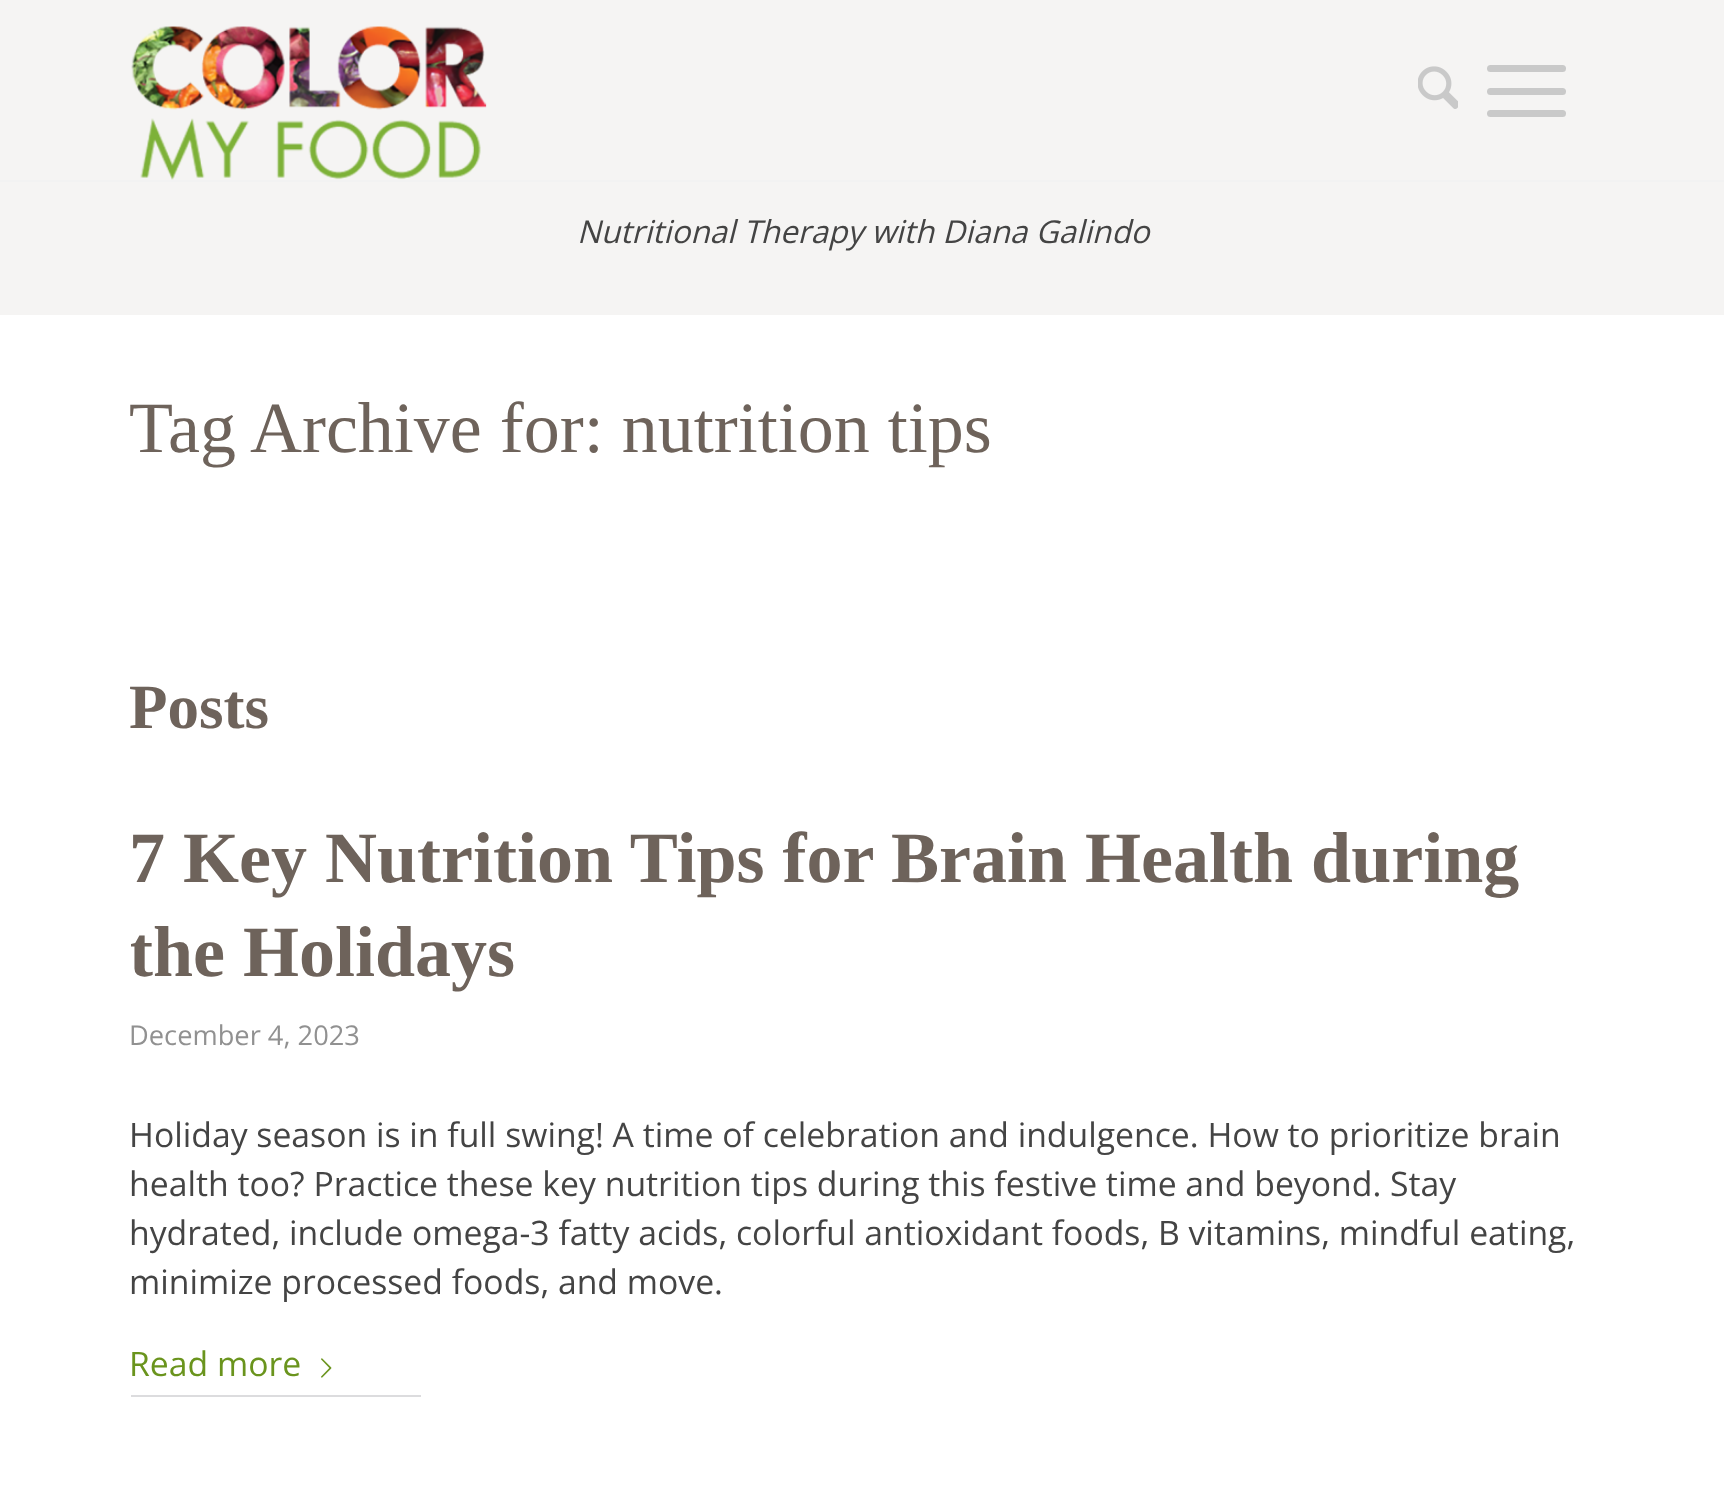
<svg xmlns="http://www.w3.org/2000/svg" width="1724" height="1496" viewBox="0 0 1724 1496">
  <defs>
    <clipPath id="clip1"><rect x="131" y="767" width="1464" height="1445"/></clipPath>
  </defs>
  <rect width="100%" height="100%" fill="#f5f4f3"/>
  <rect x="0" y="180" width="1724" height="2" fill="#f2f2f2"/>
  <image x="131" y="26" width="356" height="154" href="img1.png"/>
  <image x="1418" y="66" width="40" height="43" href="img2.png"/>
  <rect x="1487" y="88" width="79" height="7" rx="3.5" fill="#c9c9c9"/>
  <rect x="1487" y="65" width="79" height="7" rx="3.5" fill="#c9c9c9"/>
  <rect x="1487" y="110" width="79" height="7" rx="3.5" fill="#c9c9c9"/>
  <text x="577" y="243" font-family="Open Sans" font-size="31.5" font-style="italic" fill="#444444">Nutritional Therapy with Diana Galindo</text>
  <rect x="0" y="315" width="1724" height="1181" fill="#ffffff"/>
  <text x="129" y="452" font-family="Liberation Serif" font-size="72" fill="#6e635b">Tag Archive for: nutrition tips</text>
  <text x="129" y="728" font-family="Liberation Serif" font-size="63" font-weight="bold" fill="#6e635b">Posts</text>
  <text x="129" y="882" font-family="Liberation Serif" font-size="72" font-weight="bold" fill="#6e635b">7 Key Nutrition Tips for Brain Health during</text>
  <g clip-path="url(#clip1)">
    <text x="129" y="976" font-family="Liberation Serif" font-size="72" font-weight="bold" fill="#6e635b">the Holidays</text>
  </g>
  <text x="129" y="1045" font-family="Open Sans" font-size="27.25" fill="#919191">December 4, 2023</text>
  <text x="129" y="1147" font-family="Open Sans" font-size="33.75" fill="#444444">Holiday season is in full swing! A time of celebration and indulgence. How to prioritize brain</text>
  <text x="129" y="1196" font-family="Open Sans" font-size="33.75" fill="#444444">health too? Practice these key nutrition tips during this festive time and beyond. Stay</text>
  <text x="129" y="1245" font-family="Open Sans" font-size="33.75" fill="#444444">hydrated, include omega-3 fatty acids, colorful antioxidant foods, B vitamins, mindful eating,</text>
  <text x="129" y="1294" font-family="Open Sans" font-size="33.75" fill="#444444">minimize processed foods, and move.</text>
  <text x="129" y="1376" font-family="Open Sans" font-size="33.75" fill="#6a941d">Read more</text>
  <image x="321" y="1358" width="11" height="20" href="img3.png"/>
  <rect x="131" y="1395" width="290" height="2" fill="#dcdcde"/>
</svg>
